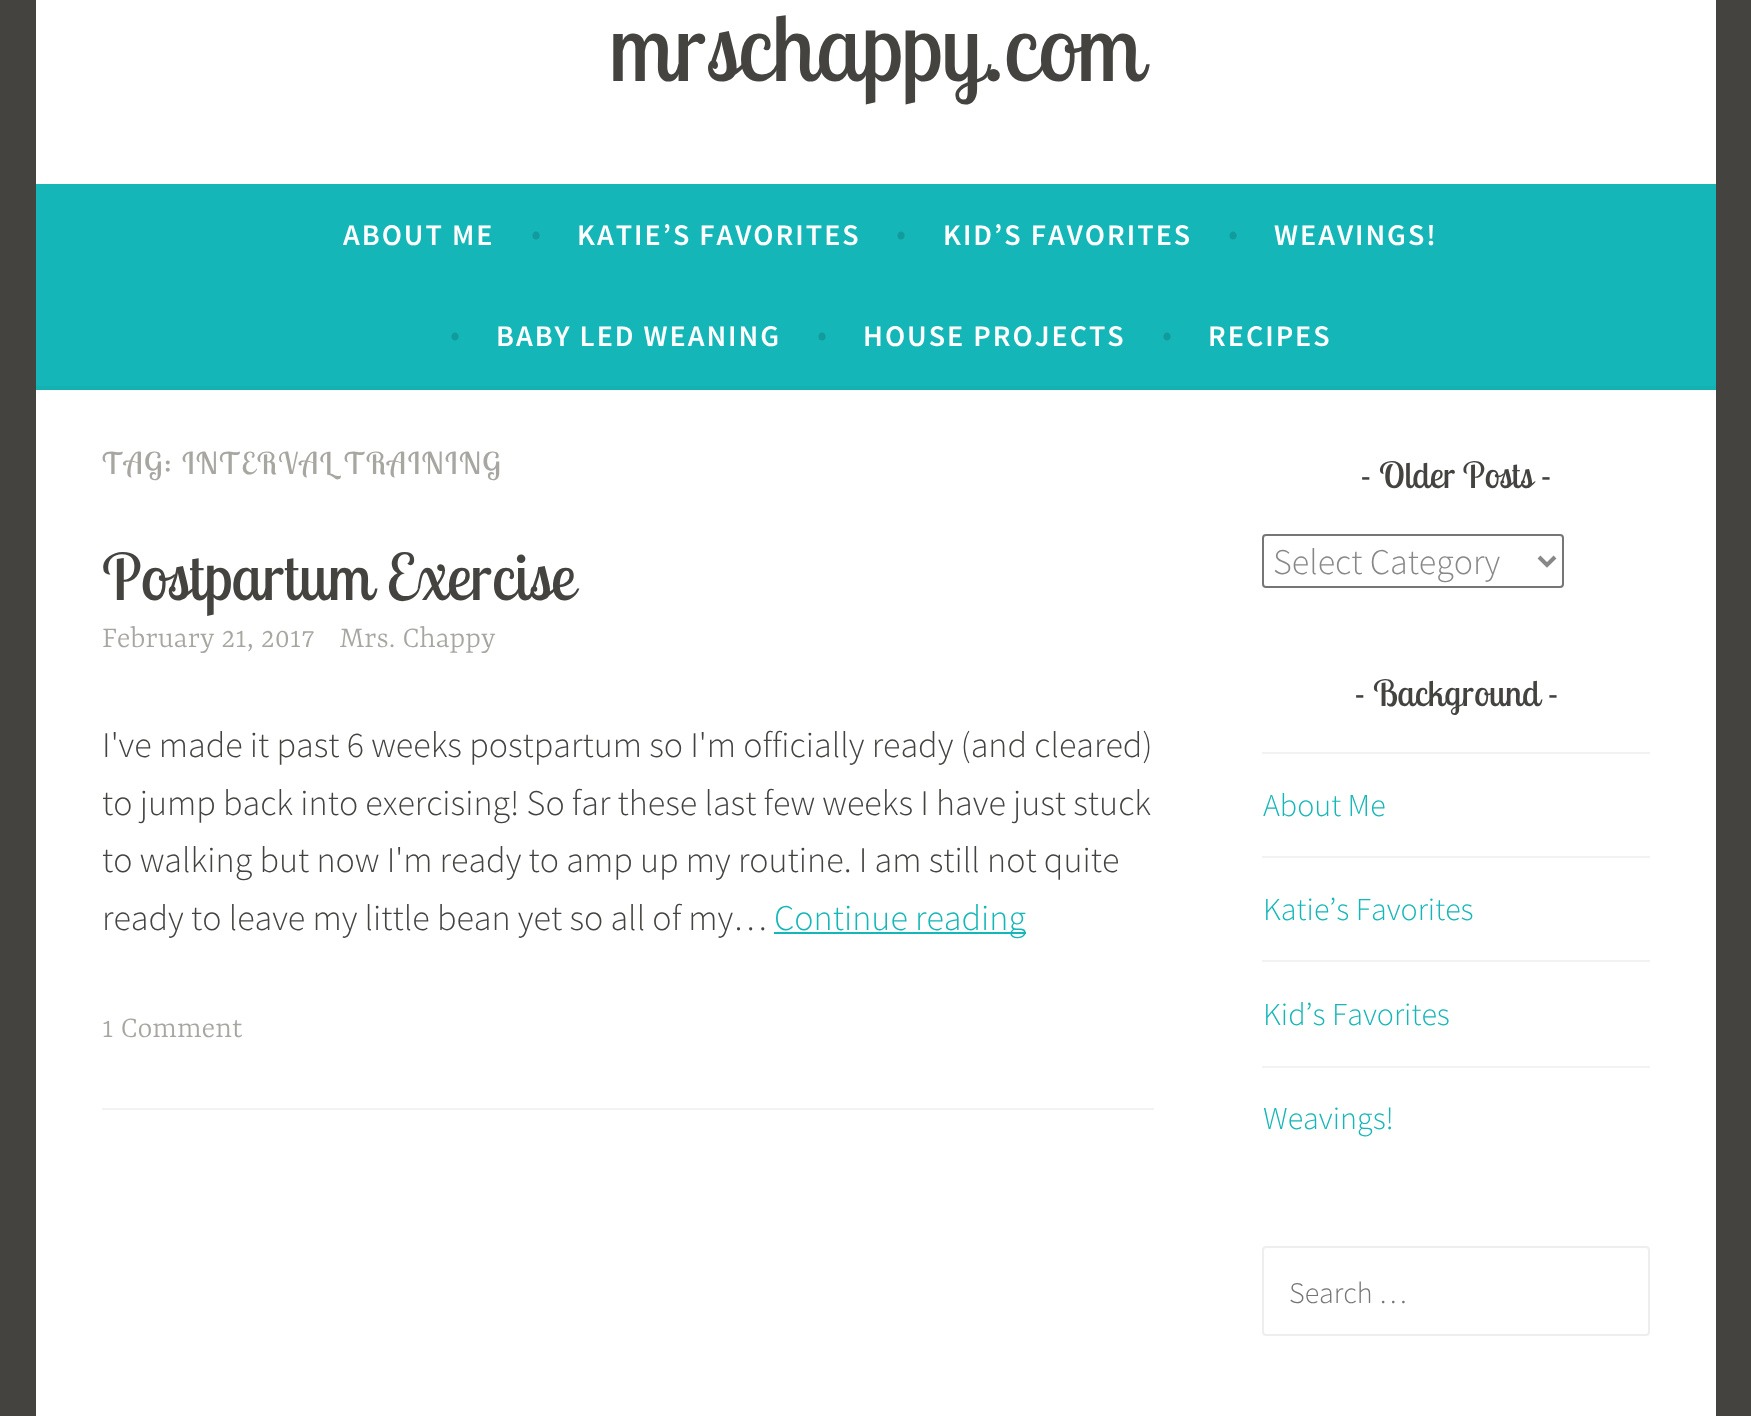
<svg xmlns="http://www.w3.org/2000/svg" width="1751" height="1416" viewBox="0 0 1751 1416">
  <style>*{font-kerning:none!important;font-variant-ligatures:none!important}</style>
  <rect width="100%" height="100%" fill="#444340"/>
  <rect x="36" y="0" width="1680" height="184" fill="#ffffff"/>
  <text x="609" y="81" font-family="Lobster Two" font-size="94" fill="#444340">mrschappy.com</text>
  <rect x="36" y="184" width="1680" height="202" fill="#15b6b8"/>
  <rect x="36" y="386" width="1680" height="4" fill="#14b1b2"/>
  <text x="343" y="245" font-family="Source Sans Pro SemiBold" font-size="30" font-weight="600" letter-spacing="2" fill="#ffffff">ABOUT ME</text>
  <text x="531" y="245" font-family="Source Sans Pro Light" font-size="36" font-weight="300" fill="#129b9c">•</text>
  <text x="577" y="245" font-family="Source Sans Pro SemiBold" font-size="30" font-weight="600" letter-spacing="2" fill="#ffffff">KATIE’S FAVORITES</text>
  <text x="896" y="245" font-family="Source Sans Pro Light" font-size="36" font-weight="300" fill="#129b9c">•</text>
  <text x="943" y="245" font-family="Source Sans Pro SemiBold" font-size="30" font-weight="600" letter-spacing="2" fill="#ffffff">KID’S FAVORITES</text>
  <text x="1228" y="245" font-family="Source Sans Pro Light" font-size="36" font-weight="300" fill="#129b9c">•</text>
  <text x="1274" y="245" font-family="Source Sans Pro SemiBold" font-size="30" font-weight="600" letter-spacing="2" fill="#ffffff">WEAVINGS!</text>
  <text x="450" y="346" font-family="Source Sans Pro Light" font-size="36" font-weight="300" fill="#129b9c">•</text>
  <text x="496" y="346" font-family="Source Sans Pro SemiBold" font-size="30" font-weight="600" letter-spacing="2" fill="#ffffff">BABY LED WEANING</text>
  <text x="817" y="346" font-family="Source Sans Pro Light" font-size="36" font-weight="300" fill="#129b9c">•</text>
  <text x="863" y="346" font-family="Source Sans Pro SemiBold" font-size="30" font-weight="600" letter-spacing="2" fill="#ffffff">HOUSE PROJECTS</text>
  <text x="1162" y="346" font-family="Source Sans Pro Light" font-size="36" font-weight="300" fill="#129b9c">•</text>
  <text x="1208" y="346" font-family="Source Sans Pro SemiBold" font-size="30" font-weight="600" letter-spacing="2" fill="#ffffff">RECIPES</text>
  <rect x="36" y="390" width="1680" height="1026" fill="#ffffff"/>
  <text x="102" y="474" font-family="Lobster Two" font-size="30" letter-spacing="2" fill="#a8a6a1">TAG: INTERVAL TRAINING</text>
  <text x="102" y="600" font-family="Lobster Two" font-size="64" fill="#444340">Postpartum Exercise</text>
  <text x="102" y="647" font-family="Yrsa" font-size="32" font-weight="300" fill="#a8a6a1">February 21, 2017</text>
  <text x="340" y="647" font-family="Yrsa" font-size="32" font-weight="300" fill="#a8a6a1">Mrs. Chappy</text>
  <text x="102" y="757" font-family="Source Sans Pro Light" font-size="36" font-weight="300" fill="#444340">I've made it past 6 weeks postpartum so I'm officially ready (and cleared)</text>
  <text x="102" y="815" font-family="Source Sans Pro Light" font-size="36" font-weight="300" fill="#444340">to jump back into exercising! So far these last few weeks I have just stuck</text>
  <text x="102" y="872" font-family="Source Sans Pro Light" font-size="36" font-weight="300" fill="#444340">to walking but now I'm ready to amp up my routine. I am still not quite</text>
  <text x="102" y="930" font-family="Source Sans Pro Light" font-size="36" font-weight="300" fill="#444340">ready to leave my little bean yet so all of my…</text>
  <rect x="774" y="932" width="252" height="2" fill="#15b6b8"/>
  <text x="774" y="930" font-family="Source Sans Pro Light" font-size="36" font-weight="300" fill="#15b6b8">Continue reading</text>
  <text x="102" y="1037" font-family="Yrsa" font-size="32" font-weight="300" fill="#a8a6a1">1 Comment</text>
  <rect x="102" y="1108" width="1052" height="2" fill="#f2f2f2"/>
  <text x="1360" y="488" font-family="Lobster Two" font-size="36" fill="#444340">- Older Posts -</text>
  <rect x="1263" y="535" width="300" height="52" rx="3" fill="none" stroke="#767676" stroke-width="2"/>
  <path d="M1539 557L1547 565L1555 557" fill="none" stroke="#888888" stroke-width="4"/>
  <text x="1273" y="574" font-family="Source Sans Pro Light" font-size="36" font-weight="300" fill="#888888">Select Category</text>
  <text x="1354" y="706" font-family="Lobster Two" font-size="36" fill="#444340">- Background -</text>
  <rect x="1262" y="752" width="388" height="2" fill="#f2f2f2"/>
  <text x="1263" y="816" font-family="Source Sans Pro Light" font-size="32" font-weight="300" fill="#15b6b8">About Me</text>
  <rect x="1262" y="856" width="388" height="2" fill="#f2f2f2"/>
  <text x="1263" y="920" font-family="Source Sans Pro Light" font-size="32" font-weight="300" fill="#15b6b8">Katie’s Favorites</text>
  <rect x="1262" y="960" width="388" height="2" fill="#f2f2f2"/>
  <text x="1263" y="1025" font-family="Source Sans Pro Light" font-size="32" font-weight="300" fill="#15b6b8">Kid’s Favorites</text>
  <rect x="1262" y="1066" width="388" height="2" fill="#f2f2f2"/>
  <text x="1263" y="1129" font-family="Source Sans Pro Light" font-size="32" font-weight="300" fill="#15b6b8">Weavings!</text>
  <rect x="1263" y="1247" width="386" height="88" rx="3" fill="none" stroke="#eeeeee" stroke-width="2"/>
  <text x="1289" y="1303" font-family="Source Sans Pro Light" font-size="30" font-weight="300" fill="#757575">Search …</text>
</svg>
